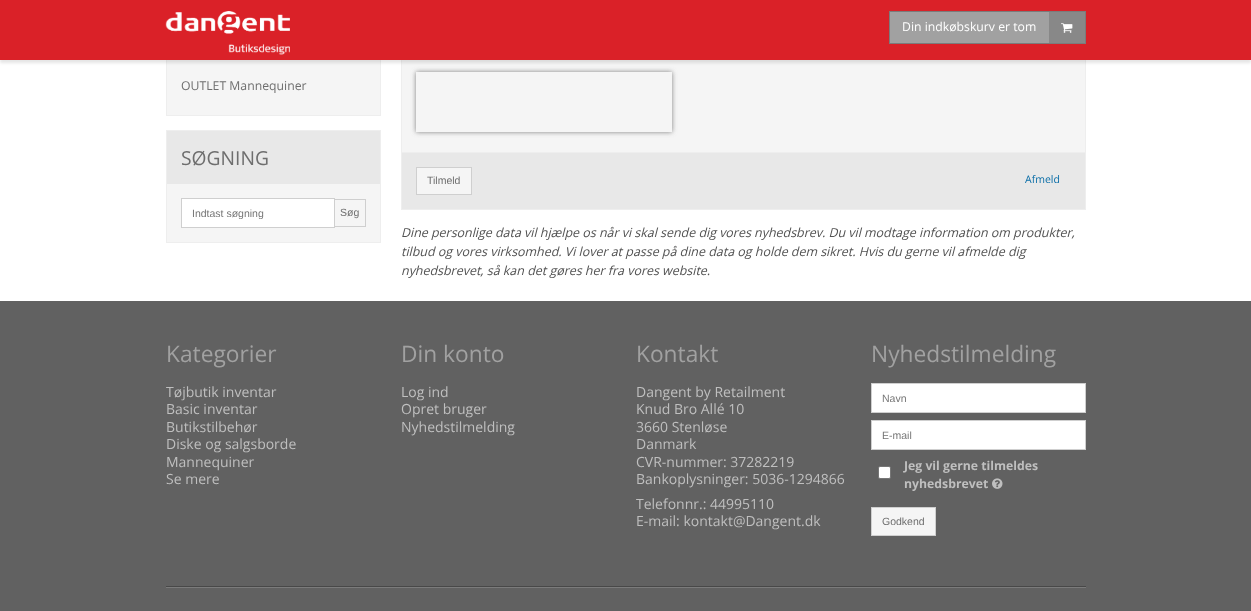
<svg xmlns="http://www.w3.org/2000/svg" width="1251" height="611" viewBox="0 0 1251 611">
  <defs>
    <filter id="blur1" x="-50%" y="-200%" width="200%" height="500%"><feGaussianBlur stdDeviation="1.5"/></filter>
    <clipPath id="clip1"><rect x="192" y="207" width="131" height="12"/></clipPath>
    <clipPath id="clip2"><path d="M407 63H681V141H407ZM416 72H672V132H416Z" clip-rule="evenodd"/></clipPath>
    <filter id="blur2" x="-50%" y="-200%" width="200%" height="500%"><feGaussianBlur stdDeviation="2.5"/></filter>
  </defs>
  <rect width="100%" height="100%" fill="#ffffff"/>
  <rect x="167" y="60" width="213" height="55" fill="#f5f5f5"/>
  <rect x="166.5" y="-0.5" width="214" height="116" fill="none" stroke="#eeeeee"/>
  <rect x="402" y="60" width="683" height="92" fill="#f5f5f5"/>
  <rect x="401.5" y="-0.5" width="684" height="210" fill="none" stroke="#eeeeee"/>
  <rect x="0" y="3" width="1251" height="60" fill="#000000" fill-opacity="0.1" filter="url(#blur1)"/>
  <rect x="0" y="0" width="1251" height="60" fill="#da2128"/>
  <image x="165" y="11" width="125" height="44" href="img1.png"/>
  <rect x="890" y="12" width="159" height="31" fill="#a1a1a1"/>
  <rect x="889.5" y="11.5" width="196" height="32" fill="none" stroke="#7b7b7b"/>
  <text x="902" y="31" font-family="Open Sans" font-size="12.25" fill="#ffffff">Din indkøbskurv er tom</text>
  <rect x="1049" y="12" width="36" height="31" fill="#888888"/>
  <image x="1061" y="23" width="12" height="10" href="img2.png"/>
  <text x="181" y="90" font-family="Open Sans" font-size="12.25" fill="#6e6e6e">OUTLET Mannequiner</text>
  <rect x="167" y="184" width="213" height="58" fill="#f5f5f5"/>
  <rect x="166.5" y="130.5" width="214" height="112" fill="none" stroke="#eeeeee"/>
  <rect x="167" y="131" width="213" height="53" fill="#e8e8e8"/>
  <text x="181" y="165" font-family="Open Sans" font-size="19.25" fill="#6e6e6e">SØGNING</text>
  <rect x="181.5" y="198.5" width="153" height="29" fill="#ffffff" stroke="#cfcfcf"/>
  <g clip-path="url(#clip1)">
    <text x="192" y="217" font-family="Liberation Sans" font-size="10.5" fill="#757575">Indtast søgning</text>
  </g>
  <rect x="334.5" y="199.5" width="31" height="27" fill="none" stroke="#cfcfcf"/>
  <text x="340" y="216" font-family="Liberation Sans" font-size="10.5" fill="#6e6e6e">Søg</text>
  <g clip-path="url(#clip2)">
    <rect x="416" y="72" width="256" height="60" fill="#808080" filter="url(#blur2)"/>
  </g>
  <rect x="402" y="153" width="683" height="56" fill="#e8e8e8"/>
  <rect x="402" y="152" width="683" height="1" fill="#eeeeee"/>
  <rect x="416.5" y="167.5" width="55" height="27" fill="#f5f5f5" stroke="#cfcfcf"/>
  <text x="427" y="184" font-family="Liberation Sans" font-size="10.5" fill="#6e6e6e">Tilmeld</text>
  <text x="1025" y="183" font-family="Open Sans" font-size="10.5" fill="#096da7">Afmeld</text>
  <text x="401" y="237" font-family="Open Sans" font-size="12.45" font-style="italic" fill="#525252">Dine personlige data vil hjælpe os når vi skal sende dig vores nyhedsbrev. Du vil modtage information om produkter,</text>
  <text x="401" y="256" font-family="Open Sans" font-size="12.45" font-style="italic" fill="#525252">tilbud og vores virksomhed. Vi lover at passe på dine data og holde dem sikret. Hvis du gerne vil afmelde dig</text>
  <text x="401" y="275" font-family="Open Sans" font-size="12.45" font-style="italic" fill="#525252">nyhedsbrevet, så kan det gøres her fra vores website.</text>
  <rect x="0" y="301" width="1251" height="310" fill="#616161"/>
  <text x="166" y="362" font-family="Open Sans" font-size="22.75" fill="#a1a1a1">Kategorier</text>
  <text x="166" y="397" font-family="Open Sans" font-size="14" fill="#bfbfbf">Tøjbutik inventar</text>
  <text x="166" y="414" font-family="Open Sans" font-size="14" fill="#bfbfbf">Basic inventar</text>
  <text x="166" y="432" font-family="Open Sans" font-size="14" fill="#bfbfbf">Butikstilbehør</text>
  <text x="166" y="449" font-family="Open Sans" font-size="14" fill="#bfbfbf">Diske og salgsborde</text>
  <text x="166" y="467" font-family="Open Sans" font-size="14" fill="#bfbfbf">Mannequiner</text>
  <text x="166" y="484" font-family="Open Sans" font-size="14" fill="#bfbfbf">Se mere</text>
  <text x="401" y="362" font-family="Open Sans" font-size="22.75" fill="#a1a1a1">Din konto</text>
  <text x="401" y="397" font-family="Open Sans" font-size="14" fill="#bfbfbf">Log ind</text>
  <text x="401" y="414" font-family="Open Sans" font-size="14" fill="#bfbfbf">Opret bruger</text>
  <text x="401" y="432" font-family="Open Sans" font-size="14" fill="#bfbfbf">Nyhedstilmelding</text>
  <text x="636" y="362" font-family="Open Sans" font-size="22.75" fill="#a1a1a1">Kontakt</text>
  <text x="636" y="397" font-family="Open Sans" font-size="14" fill="#bfbfbf">Dangent by Retailment</text>
  <text x="636" y="414" font-family="Open Sans" font-size="14" fill="#bfbfbf">Knud Bro Allé 10</text>
  <text x="636" y="432" font-family="Open Sans" font-size="14" fill="#bfbfbf">3660 Stenløse</text>
  <text x="636" y="449" font-family="Open Sans" font-size="14" fill="#bfbfbf">Danmark</text>
  <text x="636" y="467" font-family="Open Sans" font-size="14" fill="#bfbfbf">CVR-nummer: 37282219</text>
  <text x="636" y="484" font-family="Open Sans" font-size="14" fill="#bfbfbf">Bankoplysninger: 5036-1294866</text>
  <text x="636" y="509" font-family="Open Sans" font-size="14" fill="#bfbfbf">Telefonnr.: 44995110</text>
  <text x="636" y="526" font-family="Open Sans" font-size="14" fill="#bfbfbf">E-mail: kontakt@Dangent.dk</text>
  <text x="871" y="362" font-family="Open Sans" font-size="22.75" fill="#a1a1a1">Nyhedstilmelding</text>
  <rect x="871.5" y="383.5" width="214" height="29" fill="#ffffff" stroke="#cfcfcf"/>
  <text x="882" y="402" font-family="Liberation Sans" font-size="10.5" fill="#757575">Navn</text>
  <rect x="871.5" y="420.5" width="214" height="29" fill="#ffffff" stroke="#cfcfcf"/>
  <text x="882" y="439" font-family="Liberation Sans" font-size="10.5" fill="#757575">E-mail</text>
  <rect x="878.5" y="466.5" width="12" height="12" rx="1.5" fill="#ffffff" stroke="#767676"/>
  <text x="904" y="470" font-family="Open Sans" font-size="12.25" font-weight="bold" fill="#bfbfbf">Jeg vil gerne tilmeldes</text>
  <text x="904" y="488" font-family="Open Sans" font-size="12.25" font-weight="bold" fill="#bfbfbf">nyhedsbrevet</text>
  <image x="992" y="478" width="11" height="11" href="img3.png"/>
  <rect x="871.5" y="507.5" width="64" height="28" fill="#f5f5f5" stroke="#cfcfcf"/>
  <text x="882" y="525" font-family="Liberation Sans" font-size="10.5" fill="#6e6e6e">Godkend</text>
  <rect x="166" y="586" width="920" height="1" fill="#484848"/>
  <rect x="166" y="587" width="920" height="1" fill="#7b7b7b"/>
</svg>
